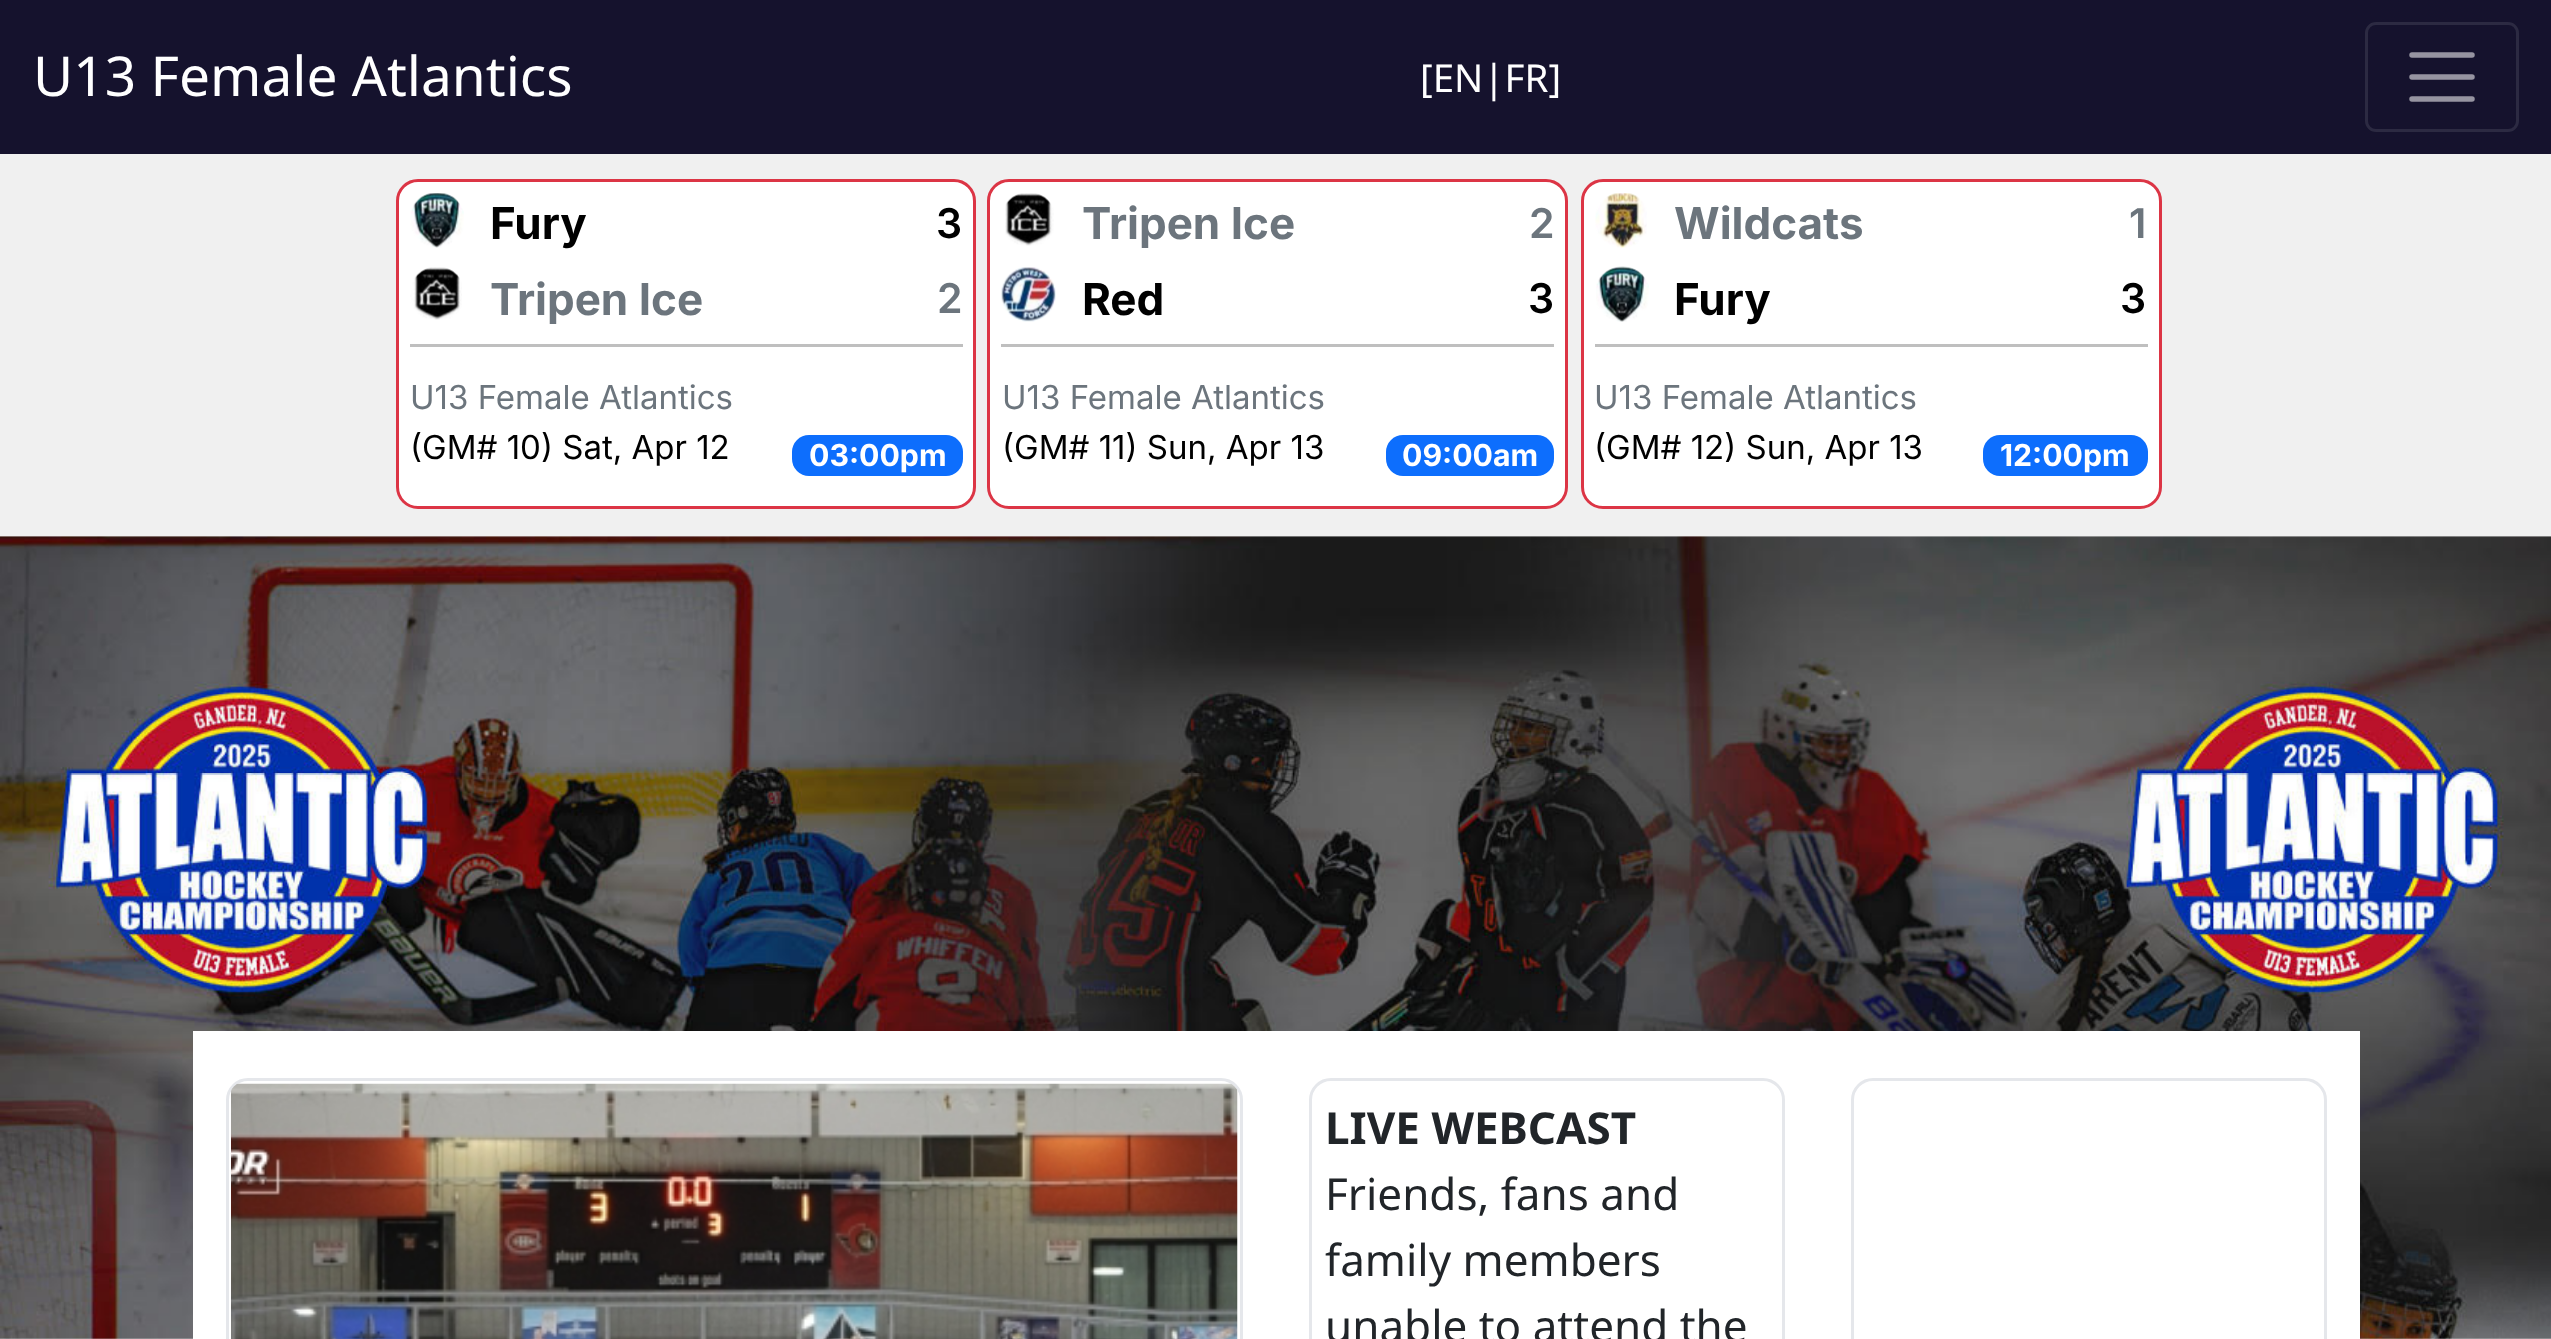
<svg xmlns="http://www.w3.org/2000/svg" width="2551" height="1339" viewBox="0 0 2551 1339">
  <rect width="100%" height="100%" fill="#ffffff"/>
  <image x="0" y="536" width="2551" height="803" href="img1.png"/>
  <rect x="0" y="0" width="2551" height="154" fill="#15122d"/>
  <text x="33" y="96" font-family="Noto Sans" font-size="55" fill="#ffffff">U13 Female Atlantics</text>
  <text x="1420" y="92" font-family="Noto Sans" font-size="38.5" fill="#ffffff">[EN|FR]</text>
  <rect x="2366.5" y="23.5" width="151" height="107" rx="9.5" fill="none" stroke="#2c2a42" stroke-width="3"/>
  <path d="M2412 55H2472M2412 77H2472M2412 99H2472" fill="none" stroke="#9694a1" stroke-width="5.5" stroke-linecap="round"/>
  <rect x="0" y="154" width="2551" height="382" fill="#f0f0f0"/>
  <rect x="397.5" y="180.5" width="577" height="327" rx="20.5" fill="#ffffff" stroke="#dc3545" stroke-width="3"/>
  <image x="410" y="193" width="54" height="55" href="img2.png"/>
  <text x="490" y="239" font-family="Inter" font-size="44" font-weight="bold" fill="#000000">Fury</text>
  <text x="936" y="238" font-family="Inter" font-size="41" font-weight="600" fill="#000000">3</text>
  <image x="410" y="267" width="52" height="53" href="img3.png"/>
  <text x="490" y="315" font-family="Inter" font-size="44" font-weight="bold" fill="#6c757d">Tripen Ice</text>
  <text x="937" y="313" font-family="Inter" font-size="41" font-weight="600" fill="#6c757d">2</text>
  <rect x="410" y="344" width="553" height="3" fill="#bfbfbf"/>
  <text x="410" y="409" font-family="Inter" font-size="33" fill="#6c757d">U13 Female Atlantics</text>
  <text x="410" y="459" font-family="Inter" font-size="33" fill="#000000">(GM# 10) Sat, Apr 12</text>
  <rect x="792" y="435" width="171" height="41" rx="17" fill="#0d6efd"/>
  <text x="809" y="466" font-family="Inter" font-size="30.25" font-weight="bold" fill="#ffffff">03:00pm</text>
  <rect x="988.5" y="180.5" width="578" height="327" rx="20.5" fill="#ffffff" stroke="#dc3545" stroke-width="3"/>
  <image x="1005" y="193" width="49" height="53" href="img4.png"/>
  <text x="1082" y="239" font-family="Inter" font-size="44" font-weight="bold" fill="#6c757d">Tripen Ice</text>
  <text x="1529" y="238" font-family="Inter" font-size="41" font-weight="600" fill="#6c757d">2</text>
  <image x="1001" y="267" width="55" height="55" href="img5.png"/>
  <text x="1082" y="315" font-family="Inter" font-size="44" font-weight="bold" fill="#000000">Red</text>
  <text x="1528" y="313" font-family="Inter" font-size="41" font-weight="600" fill="#000000">3</text>
  <rect x="1001" y="344" width="553" height="3" fill="#bfbfbf"/>
  <text x="1002" y="409" font-family="Inter" font-size="33" fill="#6c757d">U13 Female Atlantics</text>
  <text x="1002" y="459" font-family="Inter" font-size="33" fill="#000000">(GM# 11) Sun, Apr 13</text>
  <rect x="1386" y="435" width="168" height="41" rx="17" fill="#0d6efd"/>
  <text x="1402" y="466" font-family="Inter" font-size="30.25" font-weight="bold" fill="#ffffff">09:00am</text>
  <rect x="1582.5" y="180.5" width="578" height="327" rx="20.5" fill="#ffffff" stroke="#dc3545" stroke-width="3"/>
  <image x="1595" y="193" width="52" height="55" href="img6.png"/>
  <text x="1674" y="239" font-family="Inter" font-size="44" font-weight="bold" fill="#6c757d">Wildcats</text>
  <text x="2129" y="238" font-family="Inter" font-size="41" font-weight="600" fill="#6c757d">1</text>
  <image x="1596" y="266" width="53" height="56" href="img7.png"/>
  <text x="1674" y="315" font-family="Inter" font-size="44" font-weight="bold" fill="#000000">Fury</text>
  <text x="2120" y="313" font-family="Inter" font-size="41" font-weight="600" fill="#000000">3</text>
  <rect x="1595" y="344" width="553" height="3" fill="#bfbfbf"/>
  <text x="1594" y="409" font-family="Inter" font-size="33" fill="#6c757d">U13 Female Atlantics</text>
  <text x="1594" y="459" font-family="Inter" font-size="33" fill="#000000">(GM# 12) Sun, Apr 13</text>
  <rect x="1983" y="435" width="165" height="41" rx="17" fill="#0d6efd"/>
  <text x="2000" y="466" font-family="Inter" font-size="30.25" font-weight="bold" fill="#ffffff">12:00pm</text>
  <rect x="193" y="1031" width="2167" height="308" fill="#ffffff"/>
  <rect x="227.5" y="1079.5" width="1014" height="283" rx="20.5" fill="none" stroke="#e5e7eb" stroke-width="3"/>
  <image x="231" y="1083" width="1007" height="256" href="img8.png"/>
  <rect x="1310.5" y="1079.5" width="473" height="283" rx="20.5" fill="none" stroke="#e5e7eb" stroke-width="3"/>
  <text x="1325" y="1144" font-family="Noto Sans" font-size="44" font-weight="bold" fill="#212529">LIVE WEBCAST</text>
  <text x="1325" y="1210" font-family="Noto Sans" font-size="44" fill="#212529">Friends, fans and</text>
  <text x="1325" y="1276" font-family="Noto Sans" font-size="44" fill="#212529">family members</text>
  <text x="1325" y="1342" font-family="Noto Sans" font-size="44" fill="#212529">unable to attend the</text>
  <rect x="1852.5" y="1079.5" width="473" height="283" rx="20.5" fill="none" stroke="#e5e7eb" stroke-width="3"/>
</svg>
